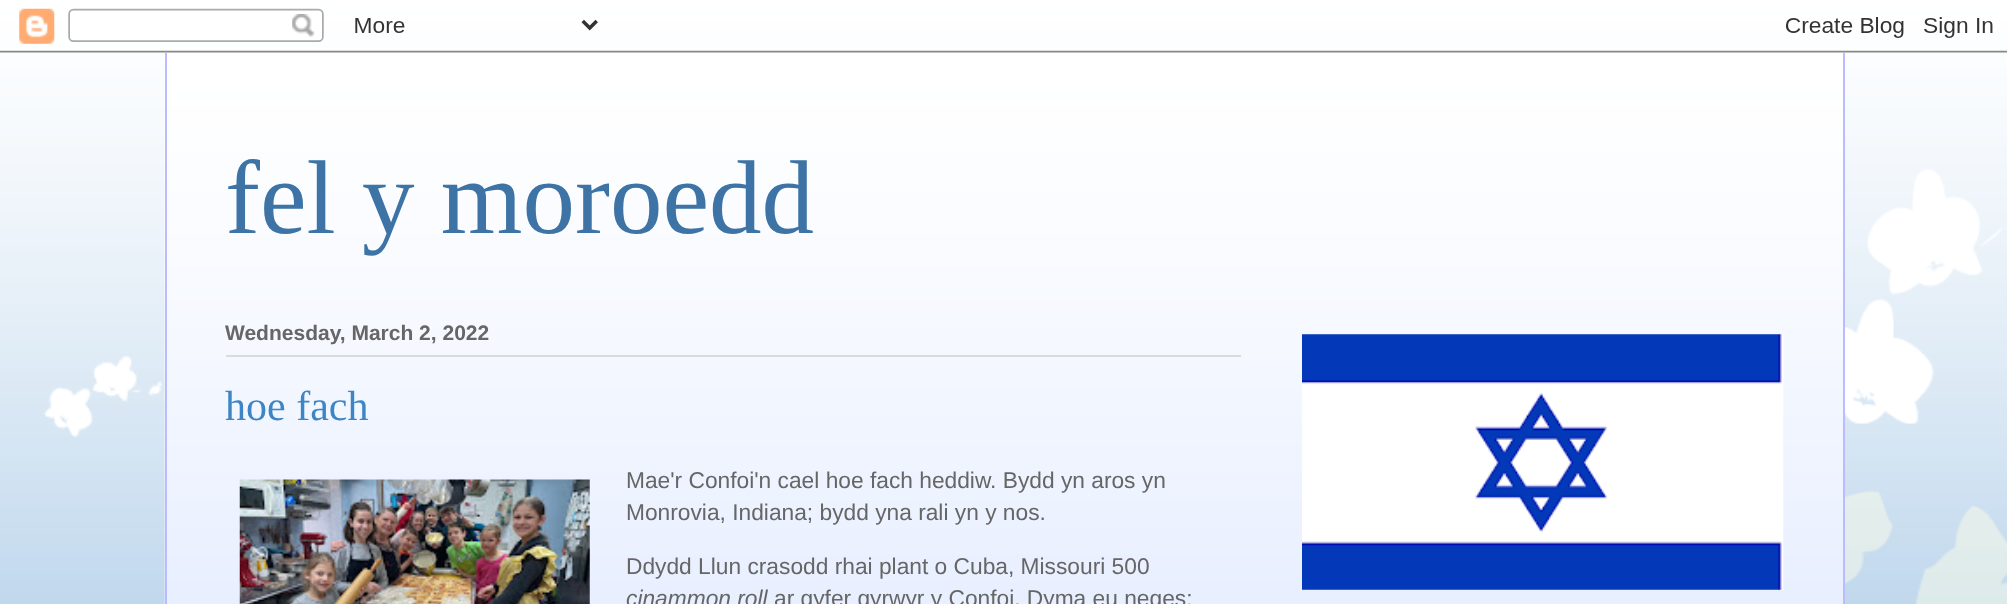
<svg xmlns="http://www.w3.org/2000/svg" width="2007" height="604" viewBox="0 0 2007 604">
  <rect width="100%" height="100%" fill="#3d85c6"/>
  <image x="0" y="0" width="2007" height="604" href="img1.png"/>
  <image x="0" y="8" width="2007" height="45" href="img2.png"/>
  <rect x="167" y="64" width="1676" height="540" fill="#d4e1ff"/>
  <image x="164" y="53" width="1679" height="551" href="img3.png"/>
  <rect x="1843" y="53" width="2" height="551" fill="#bbbbff"/>
  <rect x="165" y="53" width="2" height="551" fill="#bbbbff"/>
  <text x="225" y="233" font-family="Liberation Serif" font-size="105" fill="#3d74a5">fel y moroedd</text>
  <rect x="226" y="355" width="1015" height="2" fill="#dbdbdb"/>
  <text x="225" y="340" font-family="Liberation Sans" font-size="21" font-weight="bold" fill="#666666">Wednesday, March 2, 2022</text>
  <text x="225" y="420" font-family="Liberation Serif" font-size="42" fill="#3d85c6">hoe fach</text>
  <image x="239" y="479" width="351" height="125" href="img4.png"/>
  <text x="626" y="488" font-family="Liberation Sans" font-size="22.75" fill="#666666">Mae'r Confoi'n cael hoe fach heddiw. Bydd yn aros yn</text>
  <text x="626" y="520" font-family="Liberation Sans" font-size="22.75" fill="#666666">Monrovia, Indiana; bydd yna rali yn y nos.</text>
  <text x="626" y="574" font-family="Liberation Sans" font-size="22.75" fill="#666666">Ddydd Llun crasodd rhai plant o Cuba, Missouri 500</text>
  <text x="626" y="606" font-family="Liberation Sans" font-size="22.75" font-style="italic" fill="#666666">cinammon roll</text>
  <text x="774" y="606" font-family="Liberation Sans" font-size="22.75" fill="#666666">ar gyfer gyrwyr y Confoi. Dyma eu neges:</text>
  <image x="1302" y="334" width="482" height="256" href="img5.png"/>
</svg>
